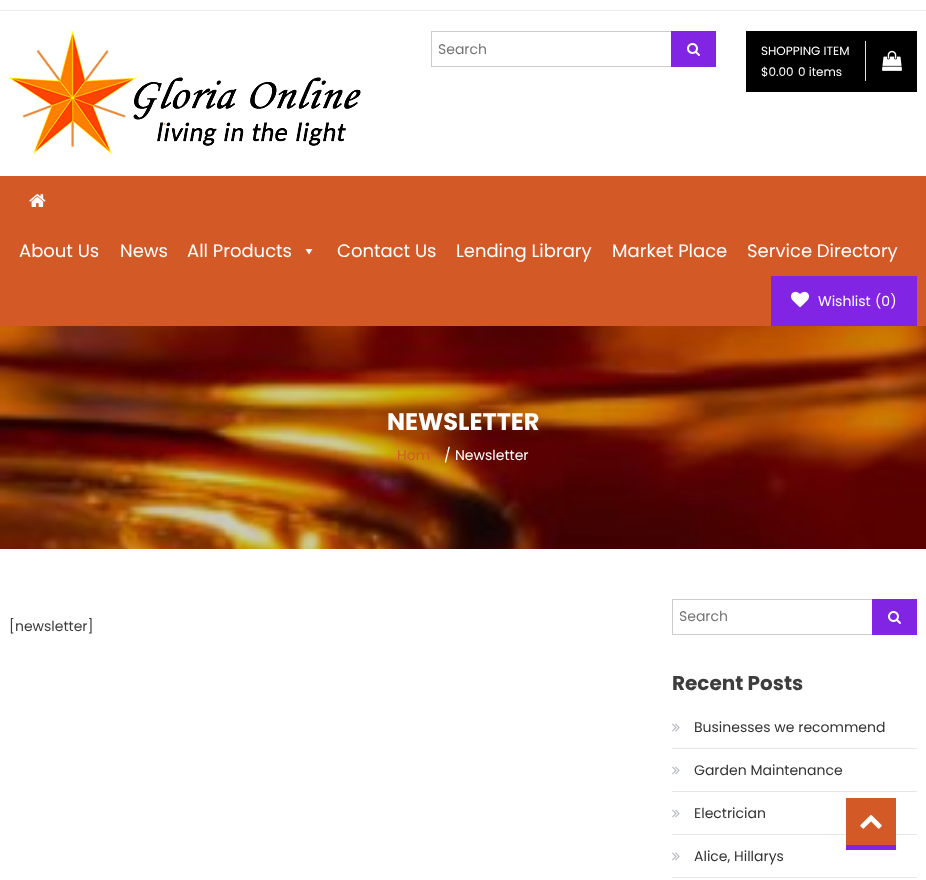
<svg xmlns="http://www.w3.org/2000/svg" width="926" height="880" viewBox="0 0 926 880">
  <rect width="100%" height="100%" fill="#ffffff"/>
  <rect x="0" y="10" width="926" height="1" fill="#eaeaea"/>
  <image x="9" y="31" width="352" height="123" href="img1.png"/>
  <rect x="431.5" y="31.5" width="284" height="35" fill="none" stroke="#cccccc"/>
  <text x="438" y="54" font-family="Poppins" font-size="14" fill="#757575">Search</text>
  <rect x="671" y="31" width="45" height="36" fill="#8224e3"/>
  <image x="687" y="43" width="13" height="13" href="img2.png"/>
  <rect x="746" y="31" width="171" height="61" fill="#000000"/>
  <text x="761" y="55" font-family="Poppins" font-size="12" fill="#ffffff">SHOPPING ITEM</text>
  <text x="761" y="76" font-family="Poppins" font-size="12" fill="#ffffff">$0.00</text>
  <text x="798" y="76" font-family="Poppins" font-size="12" fill="#ffffff">0 items</text>
  <rect x="865" y="41" width="1" height="40" fill="#e1e1e1"/>
  <image x="882" y="50" width="20" height="21" href="img3.png"/>
  <rect x="0" y="176" width="926" height="150" fill="#d35a26"/>
  <image x="29" y="194" width="17" height="13" href="img4.png"/>
  <text x="19" y="257" font-family="Poppins" font-size="18" fill="#ffffff">About Us</text>
  <text x="120" y="257" font-family="Poppins" font-size="18" fill="#ffffff">News</text>
  <text x="187" y="257" font-family="Poppins" font-size="18" fill="#ffffff">All Products</text>
  <path d="M312.5 249L309 254.5L305.5 249Z" fill="#ffffff"/>
  <text x="337" y="257" font-family="Poppins" font-size="18" fill="#ffffff">Contact Us</text>
  <text x="456" y="257" font-family="Poppins" font-size="18" fill="#ffffff">Lending Library</text>
  <text x="612" y="257" font-family="Poppins" font-size="18" fill="#ffffff">Market Place</text>
  <text x="747" y="257" font-family="Poppins" font-size="18" fill="#ffffff">Service Directory</text>
  <rect x="771" y="276" width="146" height="50" fill="#8224e3"/>
  <image x="791" y="291" width="18" height="17" href="img5.png"/>
  <text x="818" y="306" font-family="Poppins" font-size="14" fill="#ffffff">Wishlist</text>
  <text x="875" y="306" font-family="Poppins" font-size="14" fill="#ffffff">(0)</text>
  <image x="0" y="326" width="926" height="223" href="img6.png"/>
  <text x="387" y="430" font-family="Poppins" font-size="24" font-weight="bold" fill="#ffffff">NEWSLETTER</text>
  <text x="397" y="460" font-family="Poppins" font-size="14" fill="#d35a26">Hom</text>
  <text x="444" y="460" font-family="Poppins" font-size="14" fill="#ffffff">/</text>
  <text x="455" y="460" font-family="Poppins" font-size="14" fill="#ffffff">Newsletter</text>
  <text x="9" y="631" font-family="Poppins" font-size="14" fill="#3d3d3d">[newsletter]</text>
  <rect x="672.5" y="599.5" width="244" height="35" fill="none" stroke="#cccccc"/>
  <text x="679" y="621" font-family="Poppins" font-size="14" fill="#757575">Search</text>
  <rect x="872" y="599" width="45" height="36" fill="#8224e3"/>
  <image x="888" y="611" width="13" height="13" href="img2.png"/>
  <text x="672" y="690" font-family="Poppins" font-size="20" font-weight="bold" fill="#3d3d3d">Recent Posts</text>
  <rect x="672" y="748" width="245" height="1" fill="#e6e6e6"/>
  <image x="672" y="723" width="8" height="9" href="img7.png"/>
  <text x="694" y="732" font-family="Poppins" font-size="14" fill="#333333">Businesses we recommend</text>
  <rect x="672" y="791" width="245" height="1" fill="#e6e6e6"/>
  <image x="672" y="766" width="8" height="9" href="img7.png"/>
  <text x="694" y="775" font-family="Poppins" font-size="14" fill="#333333">Garden Maintenance</text>
  <rect x="672" y="834" width="245" height="1" fill="#e6e6e6"/>
  <image x="672" y="809" width="8" height="9" href="img7.png"/>
  <text x="694" y="818" font-family="Poppins" font-size="14" fill="#333333">Electrician</text>
  <rect x="672" y="877" width="245" height="1" fill="#e6e6e6"/>
  <image x="672" y="852" width="8" height="9" href="img7.png"/>
  <text x="694" y="861" font-family="Poppins" font-size="14" fill="#333333">Alice, Hillarys</text>
  <rect x="846" y="798" width="50" height="47" fill="#d35a26"/>
  <rect x="846" y="845" width="50" height="5" fill="#8224e3"/>
  <image x="860" y="814" width="22" height="15" href="img8.png"/>
</svg>
